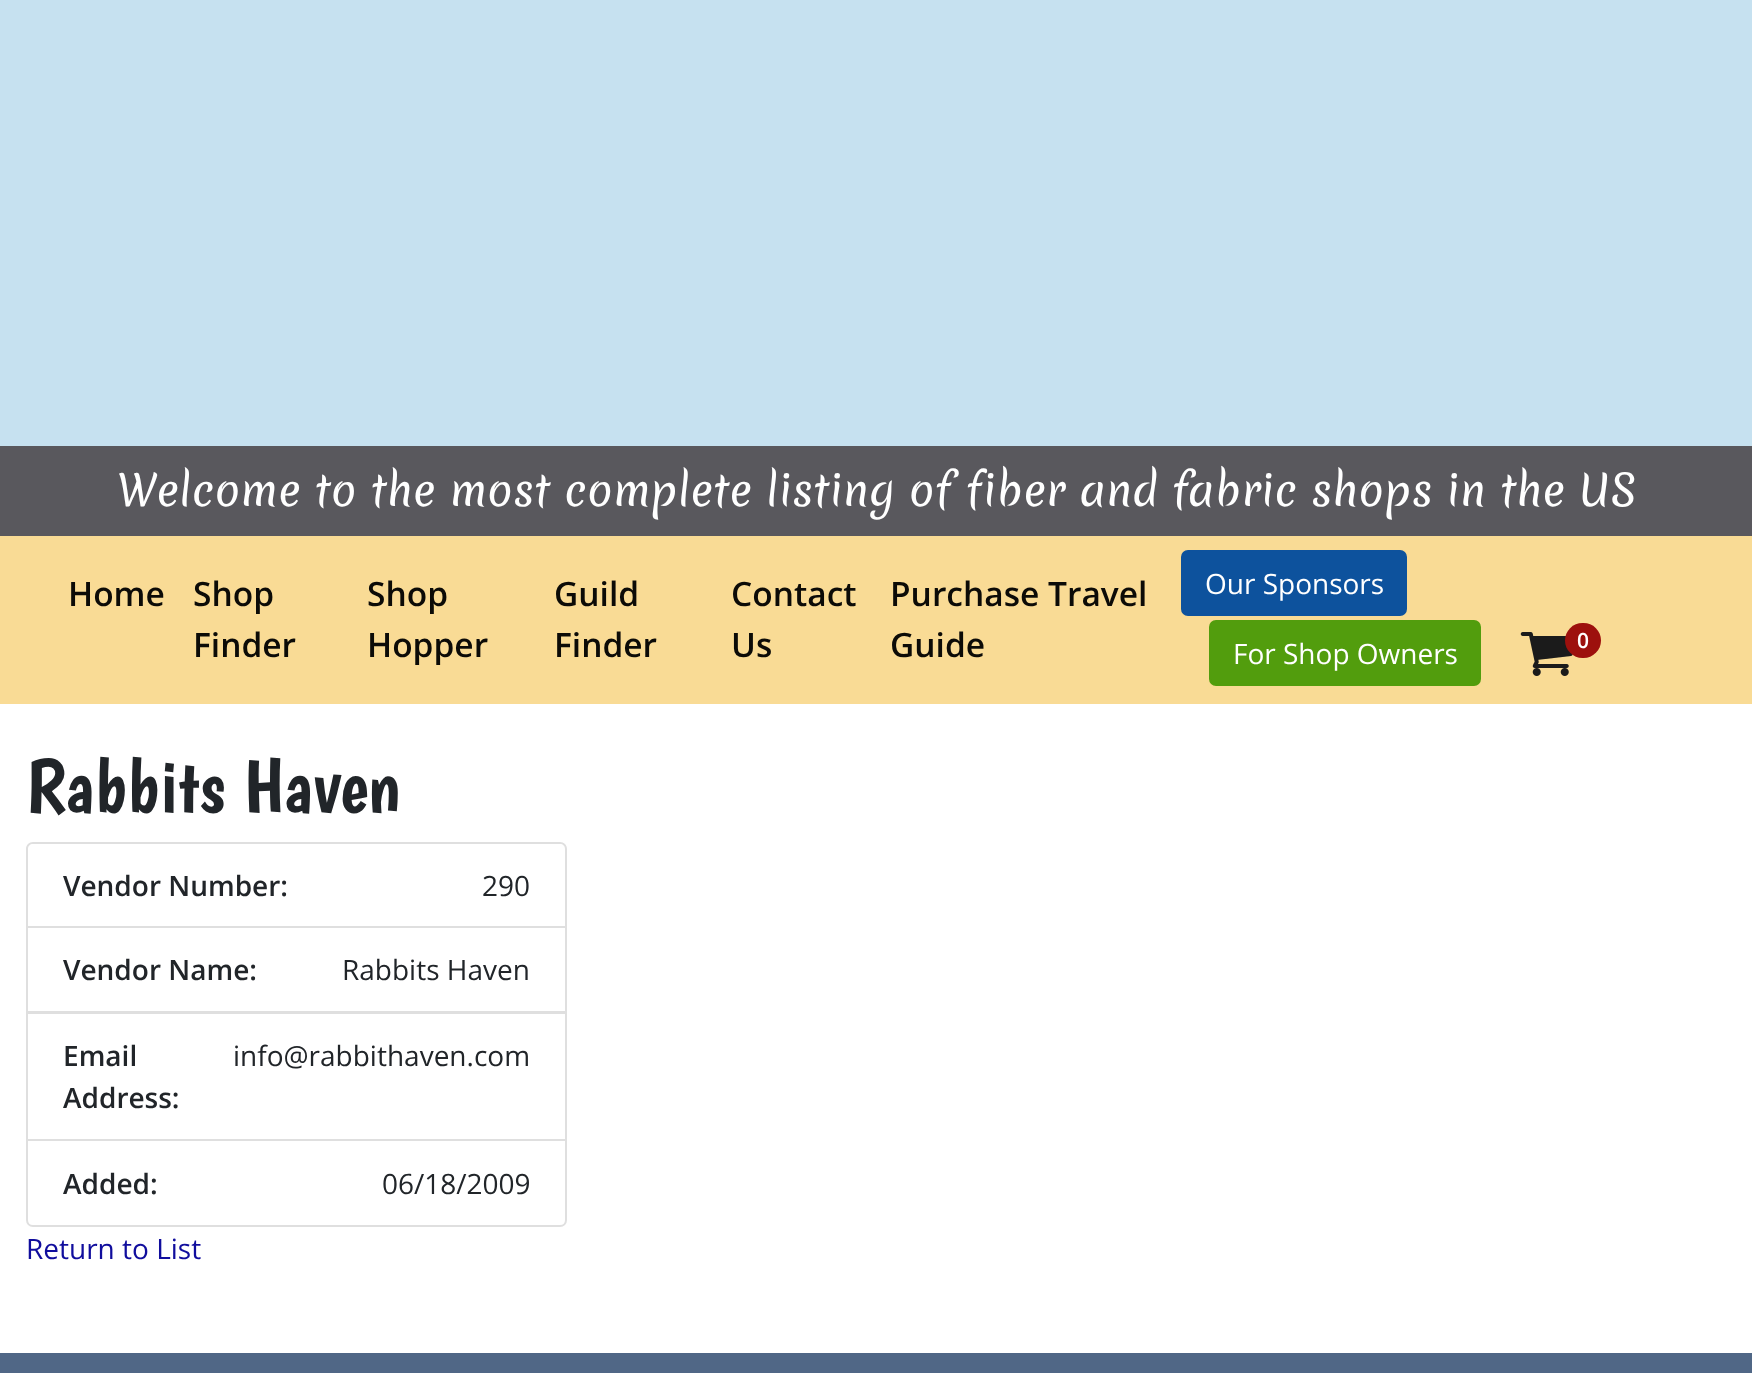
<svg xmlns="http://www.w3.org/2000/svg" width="1752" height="1373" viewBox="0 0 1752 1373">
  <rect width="100%" height="100%" fill="#ffffff"/>
  <rect x="0" y="0" width="1752" height="446" fill="#c6e1f0"/>
  <rect x="0" y="446" width="1752" height="90" fill="#59585d"/>
  <text x="117" y="506" font-family="Merienda" font-size="42" fill="#ffffff">Welcome to the most complete listing of fiber and fabric shops in the US</text>
  <rect x="0" y="536" width="1752" height="168" fill="#f9db95"/>
  <text x="68" y="606" font-family="Open Sans" font-size="33.5" font-weight="600" fill="#0c0b07">Home</text>
  <text x="193" y="606" font-family="Open Sans" font-size="33.5" font-weight="600" fill="#0c0b07">Shop</text>
  <text x="193" y="657" font-family="Open Sans" font-size="33.5" font-weight="600" fill="#0c0b07">Finder</text>
  <text x="367" y="606" font-family="Open Sans" font-size="33.5" font-weight="600" fill="#0c0b07">Shop</text>
  <text x="367" y="657" font-family="Open Sans" font-size="33.5" font-weight="600" fill="#0c0b07">Hopper</text>
  <text x="554" y="606" font-family="Open Sans" font-size="33.5" font-weight="600" fill="#0c0b07">Guild</text>
  <text x="554" y="657" font-family="Open Sans" font-size="33.5" font-weight="600" fill="#0c0b07">Finder</text>
  <text x="731" y="606" font-family="Open Sans" font-size="33.5" font-weight="600" fill="#0c0b07">Contact</text>
  <text x="731" y="657" font-family="Open Sans" font-size="33.5" font-weight="600" fill="#0c0b07">Us</text>
  <text x="890" y="606" font-family="Open Sans" font-size="33.5" font-weight="600" fill="#0c0b07">Purchase Travel</text>
  <text x="890" y="657" font-family="Open Sans" font-size="33.5" font-weight="600" fill="#0c0b07">Guide</text>
  <rect x="1182" y="551" width="224" height="64" rx="6" fill="#0d529d" stroke="#0d529d" stroke-width="2"/>
  <text x="1205" y="594" font-family="Open Sans" font-size="28" fill="#ffffff">Our Sponsors</text>
  <rect x="1210" y="621" width="270" height="64" rx="6" fill="#529d0d" stroke="#529d0d" stroke-width="2"/>
  <text x="1233" y="664" font-family="Open Sans" font-size="28" fill="#ffffff">For Shop Owners</text>
  <image x="1520" y="632" width="53" height="44" href="img1.png"/>
  <rect x="1565" y="623" width="36" height="35" rx="17.5" fill="#9d100d"/>
  <text x="1577" y="648" font-family="Open Sans" font-size="21" font-weight="600" fill="#ffffff">0</text>
  <text x="26" y="812" font-family="Boogaloo" font-size="75.25" fill="#212529">Rabbits Haven</text>
  <path d="M33 842H560C564 842 567 845 567 849V928H26V849C26 845 29 842 33 842ZM33 844H560C563 844 565 846 565 849V928H28V849C28 846 30 844 33 844Z" fill="#dfdfdf" fill-rule="evenodd"/>
  <text x="63" y="896" font-family="Open Sans" font-size="28" font-weight="600" fill="#212529">Vendor Number:</text>
  <text x="482" y="896" font-family="Open Sans" font-size="28" fill="#212529">290</text>
  <rect x="27" y="927" width="539" height="85" fill="none" stroke="#dfdfdf" stroke-width="2"/>
  <text x="63" y="980" font-family="Open Sans" font-size="28" font-weight="600" fill="#212529">Vendor Name:</text>
  <text x="342" y="980" font-family="Open Sans" font-size="28" fill="#212529">Rabbits Haven</text>
  <rect x="27" y="1013" width="539" height="127" fill="none" stroke="#dfdfdf" stroke-width="2"/>
  <text x="63" y="1066" font-family="Open Sans" font-size="28" font-weight="600" fill="#212529">Email</text>
  <text x="63" y="1108" font-family="Open Sans" font-size="28" font-weight="600" fill="#212529">Address:</text>
  <text x="233" y="1066" font-family="Open Sans" font-size="28" fill="#212529">info@rabbithaven.com</text>
  <path d="M27 1140H566V1220C566 1223.5 563.5 1226 560 1226H33C29.5 1226 27 1223.5 27 1220Z" fill="#ffffff" stroke="#dfdfdf" stroke-width="2"/>
  <text x="63" y="1194" font-family="Open Sans" font-size="28" font-weight="600" fill="#212529">Added:</text>
  <text x="382" y="1194" font-family="Open Sans" font-size="28" fill="#212529">06/18/2009</text>
  <text x="26" y="1259" font-family="Open Sans" font-size="28" fill="#100d9d">Return to List</text>
  <rect x="0" y="1353" width="1752" height="20" fill="#506786"/>
</svg>
